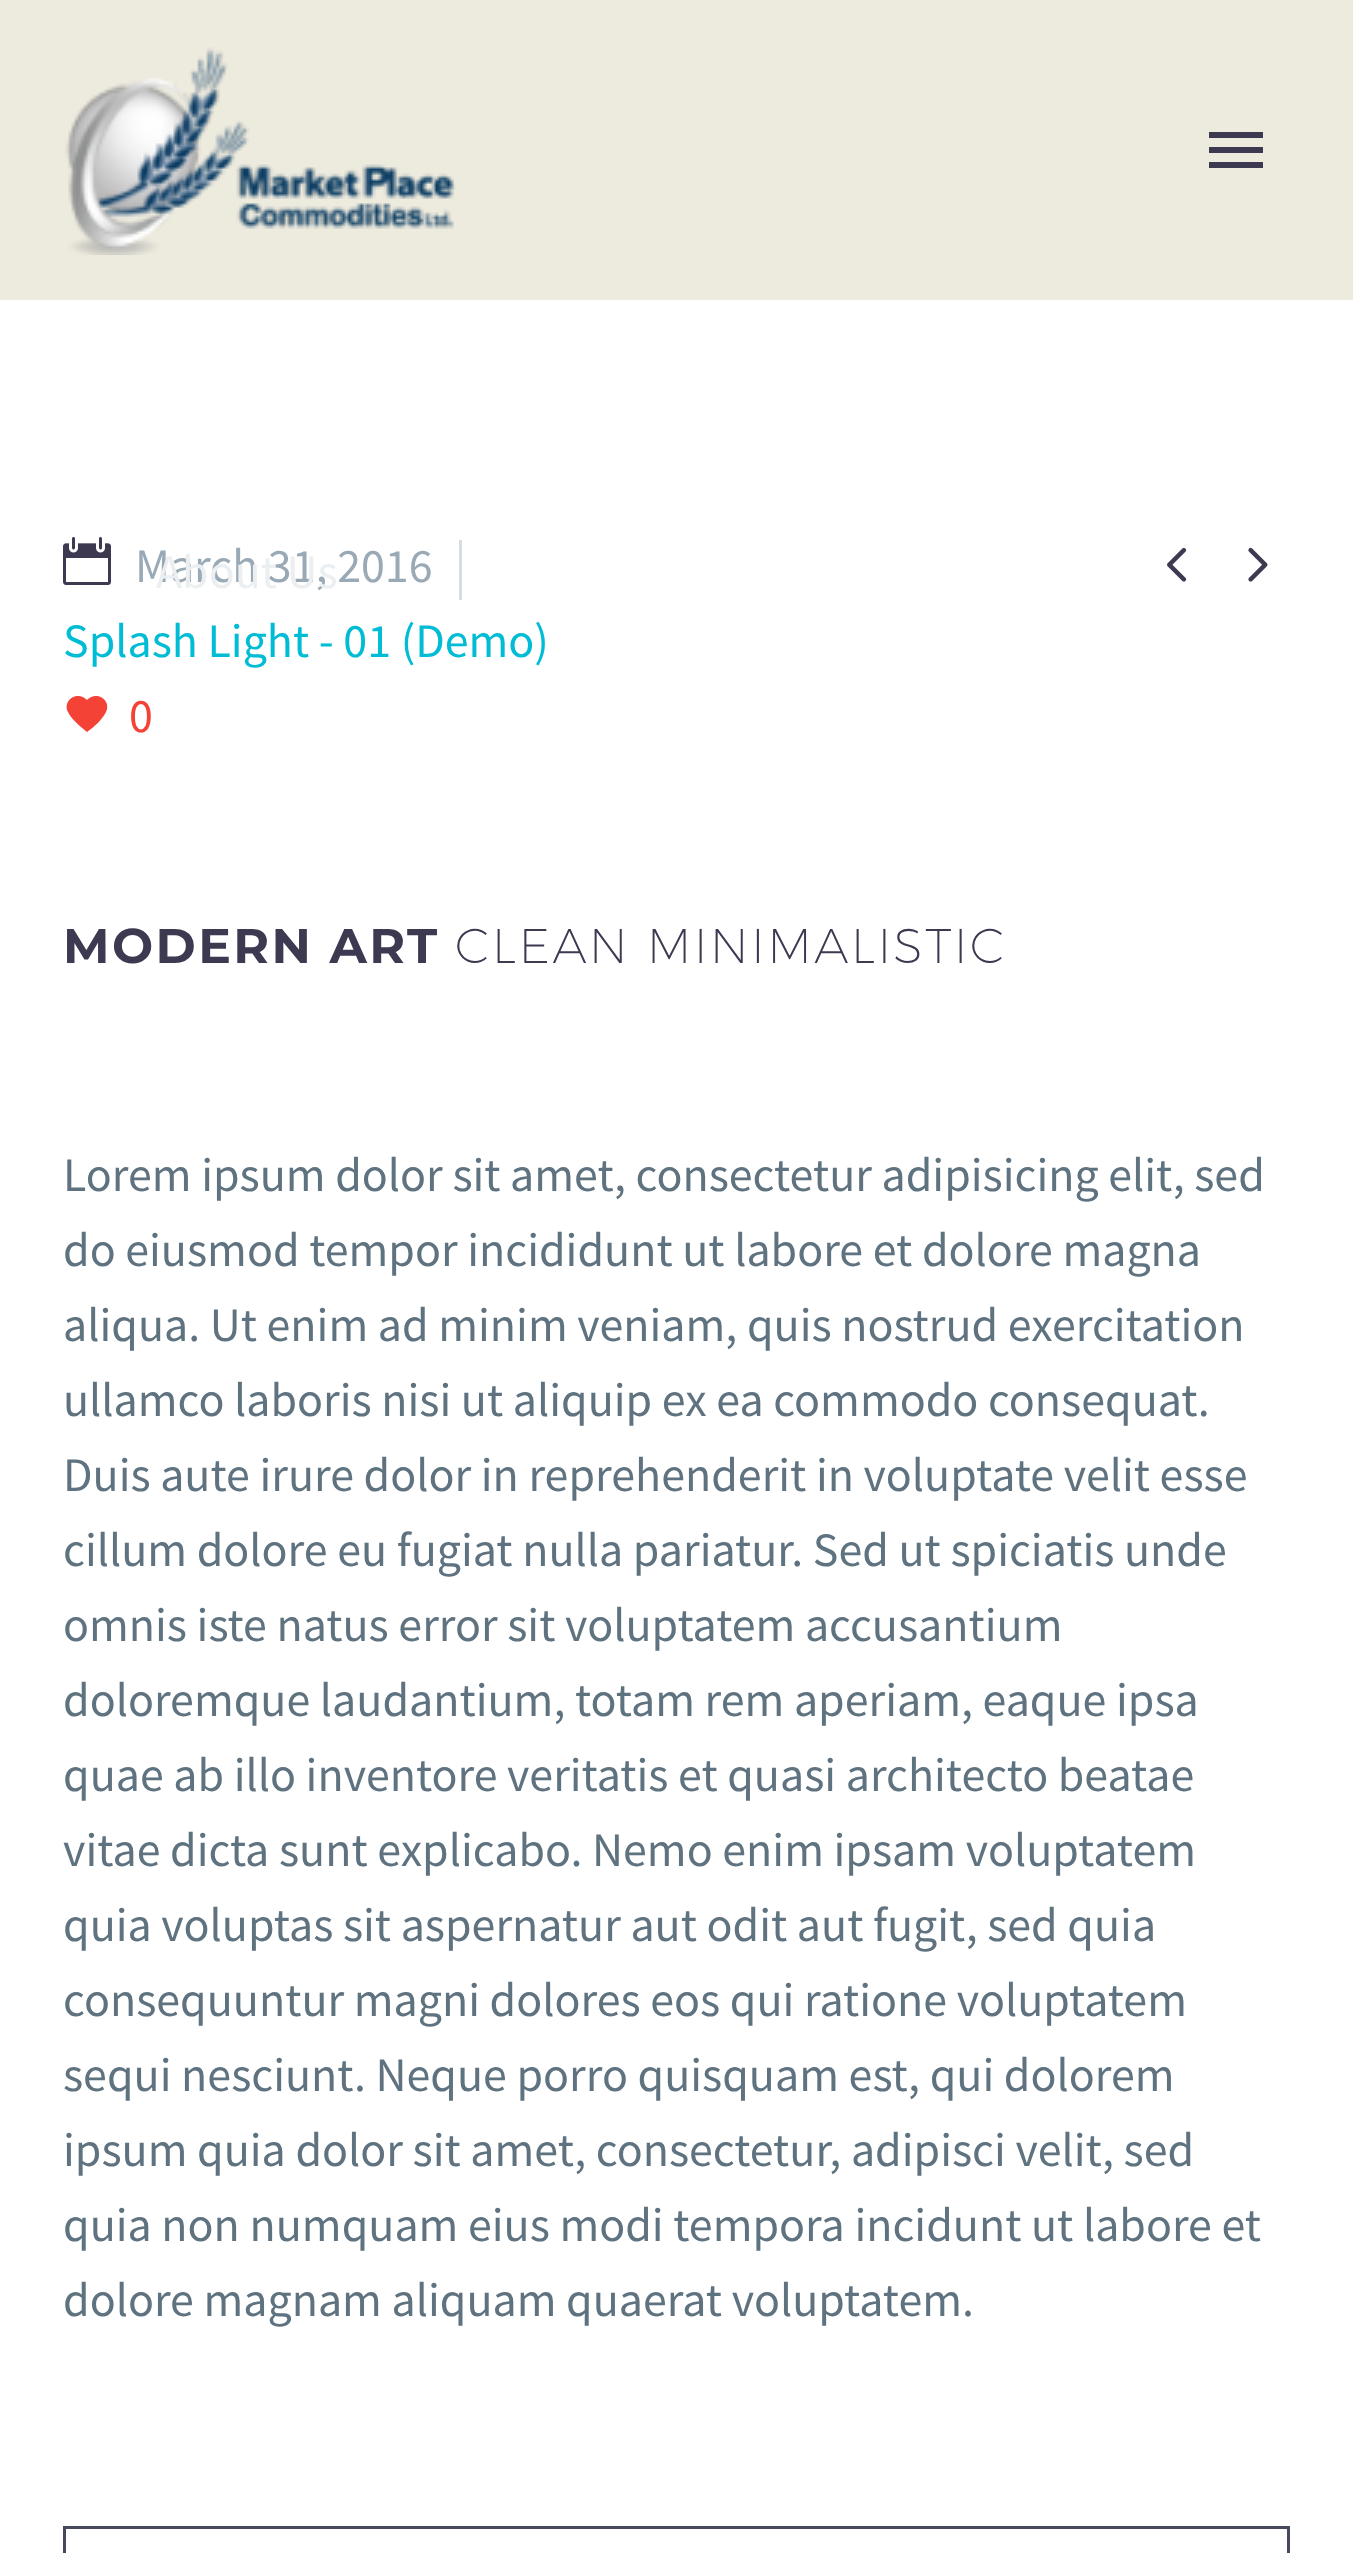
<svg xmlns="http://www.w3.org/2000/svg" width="1353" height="2553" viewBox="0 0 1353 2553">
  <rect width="100%" height="100%" fill="#edeade"/>
  <rect x="0" y="300" width="1353" height="2253" fill="#ffffff"/>
  <image x="63" y="537" width="48" height="48" href="img1.png"/>
  <text x="135" y="582" font-family="Source Sans Pro" font-size="48" fill="#99a9b5">March 31, 2016</text>
  <rect x="459" y="540" width="3" height="60" fill="#d4dee1"/>
  <text x="63" y="657" font-family="Source Sans Pro" font-size="48" fill="#00bcd4">Splash Light - 01 (Demo)</text>
  <path d="M87 732C80 726 72 720 68 712C62 700 78 690 87 700C96 690 112 700 106 712C102 720 94 727 87 732Z" fill="#f44336"/>
  <text x="129" y="732" font-family="Source Sans Pro" font-size="48" fill="#f44336">0</text>
  <image x="1167" y="547" width="20" height="35" href="img2.png"/>
  <image x="1248" y="547" width="20" height="35" href="img3.png"/>
  <text x="63" y="963" font-family="Montserrat" font-size="48.75" font-weight="bold" letter-spacing="2.4" fill="#3c3950">MODERN ART</text>
  <text x="455" y="963" font-family="Montserrat" font-size="48.75" font-weight="200" letter-spacing="2.4" fill="#3c3950">CLEAN MINIMALISTIC</text>
  <text x="63" y="1191" font-family="Source Sans Pro" font-size="48" fill="#5f727f">Lorem ipsum dolor sit amet, consectetur adipisicing elit, sed</text>
  <text x="63" y="1266" font-family="Source Sans Pro" font-size="48" fill="#5f727f">do eiusmod tempor incididunt ut labore et dolore magna</text>
  <text x="63" y="1341" font-family="Source Sans Pro" font-size="48" fill="#5f727f">aliqua. Ut enim ad minim veniam, quis nostrud exercitation</text>
  <text x="63" y="1416" font-family="Source Sans Pro" font-size="48" fill="#5f727f">ullamco laboris nisi ut aliquip ex ea commodo consequat.</text>
  <text x="63" y="1491" font-family="Source Sans Pro" font-size="48" fill="#5f727f">Duis aute irure dolor in reprehenderit in voluptate velit esse</text>
  <text x="63" y="1566" font-family="Source Sans Pro" font-size="48" fill="#5f727f">cillum dolore eu fugiat nulla pariatur. Sed ut spiciatis unde</text>
  <text x="63" y="1641" font-family="Source Sans Pro" font-size="48" fill="#5f727f">omnis iste natus error sit voluptatem accusantium</text>
  <text x="63" y="1716" font-family="Source Sans Pro" font-size="48" fill="#5f727f">doloremque laudantium, totam rem aperiam, eaque ipsa</text>
  <text x="63" y="1791" font-family="Source Sans Pro" font-size="48" fill="#5f727f">quae ab illo inventore veritatis et quasi architecto beatae</text>
  <text x="63" y="1866" font-family="Source Sans Pro" font-size="48" fill="#5f727f">vitae dicta sunt explicabo. Nemo enim ipsam voluptatem</text>
  <text x="63" y="1941" font-family="Source Sans Pro" font-size="48" fill="#5f727f">quia voluptas sit aspernatur aut odit aut fugit, sed quia</text>
  <text x="63" y="2016" font-family="Source Sans Pro" font-size="48" fill="#5f727f">consequuntur magni dolores eos qui ratione voluptatem</text>
  <text x="63" y="2091" font-family="Source Sans Pro" font-size="48" fill="#5f727f">sequi nesciunt. Neque porro quisquam est, qui dolorem</text>
  <text x="63" y="2166" font-family="Source Sans Pro" font-size="48" fill="#5f727f">ipsum quia dolor sit amet, consectetur, adipisci velit, sed</text>
  <text x="63" y="2241" font-family="Source Sans Pro" font-size="48" fill="#5f727f">quia non numquam eius modi tempora incidunt ut labore et</text>
  <text x="63" y="2316" font-family="Source Sans Pro" font-size="48" fill="#5f727f">dolore magnam aliquam quaerat voluptatem.</text>
  <rect x="64.5" y="2527.5" width="1224" height="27" fill="none" stroke="#46485c" stroke-width="3"/>
  <image x="65" y="47" width="391" height="208" href="img4.png"/>
  <rect x="1209" y="132" width="54" height="6" fill="#3c3950"/>
  <rect x="1209" y="147" width="54" height="6" fill="#3c3950"/>
  <rect x="1209" y="162" width="54" height="6" fill="#3c3950"/>
  <text x="156" y="588" font-family="Source Sans Pro" font-size="48" fill="#eceff1">About Us</text>
</svg>
